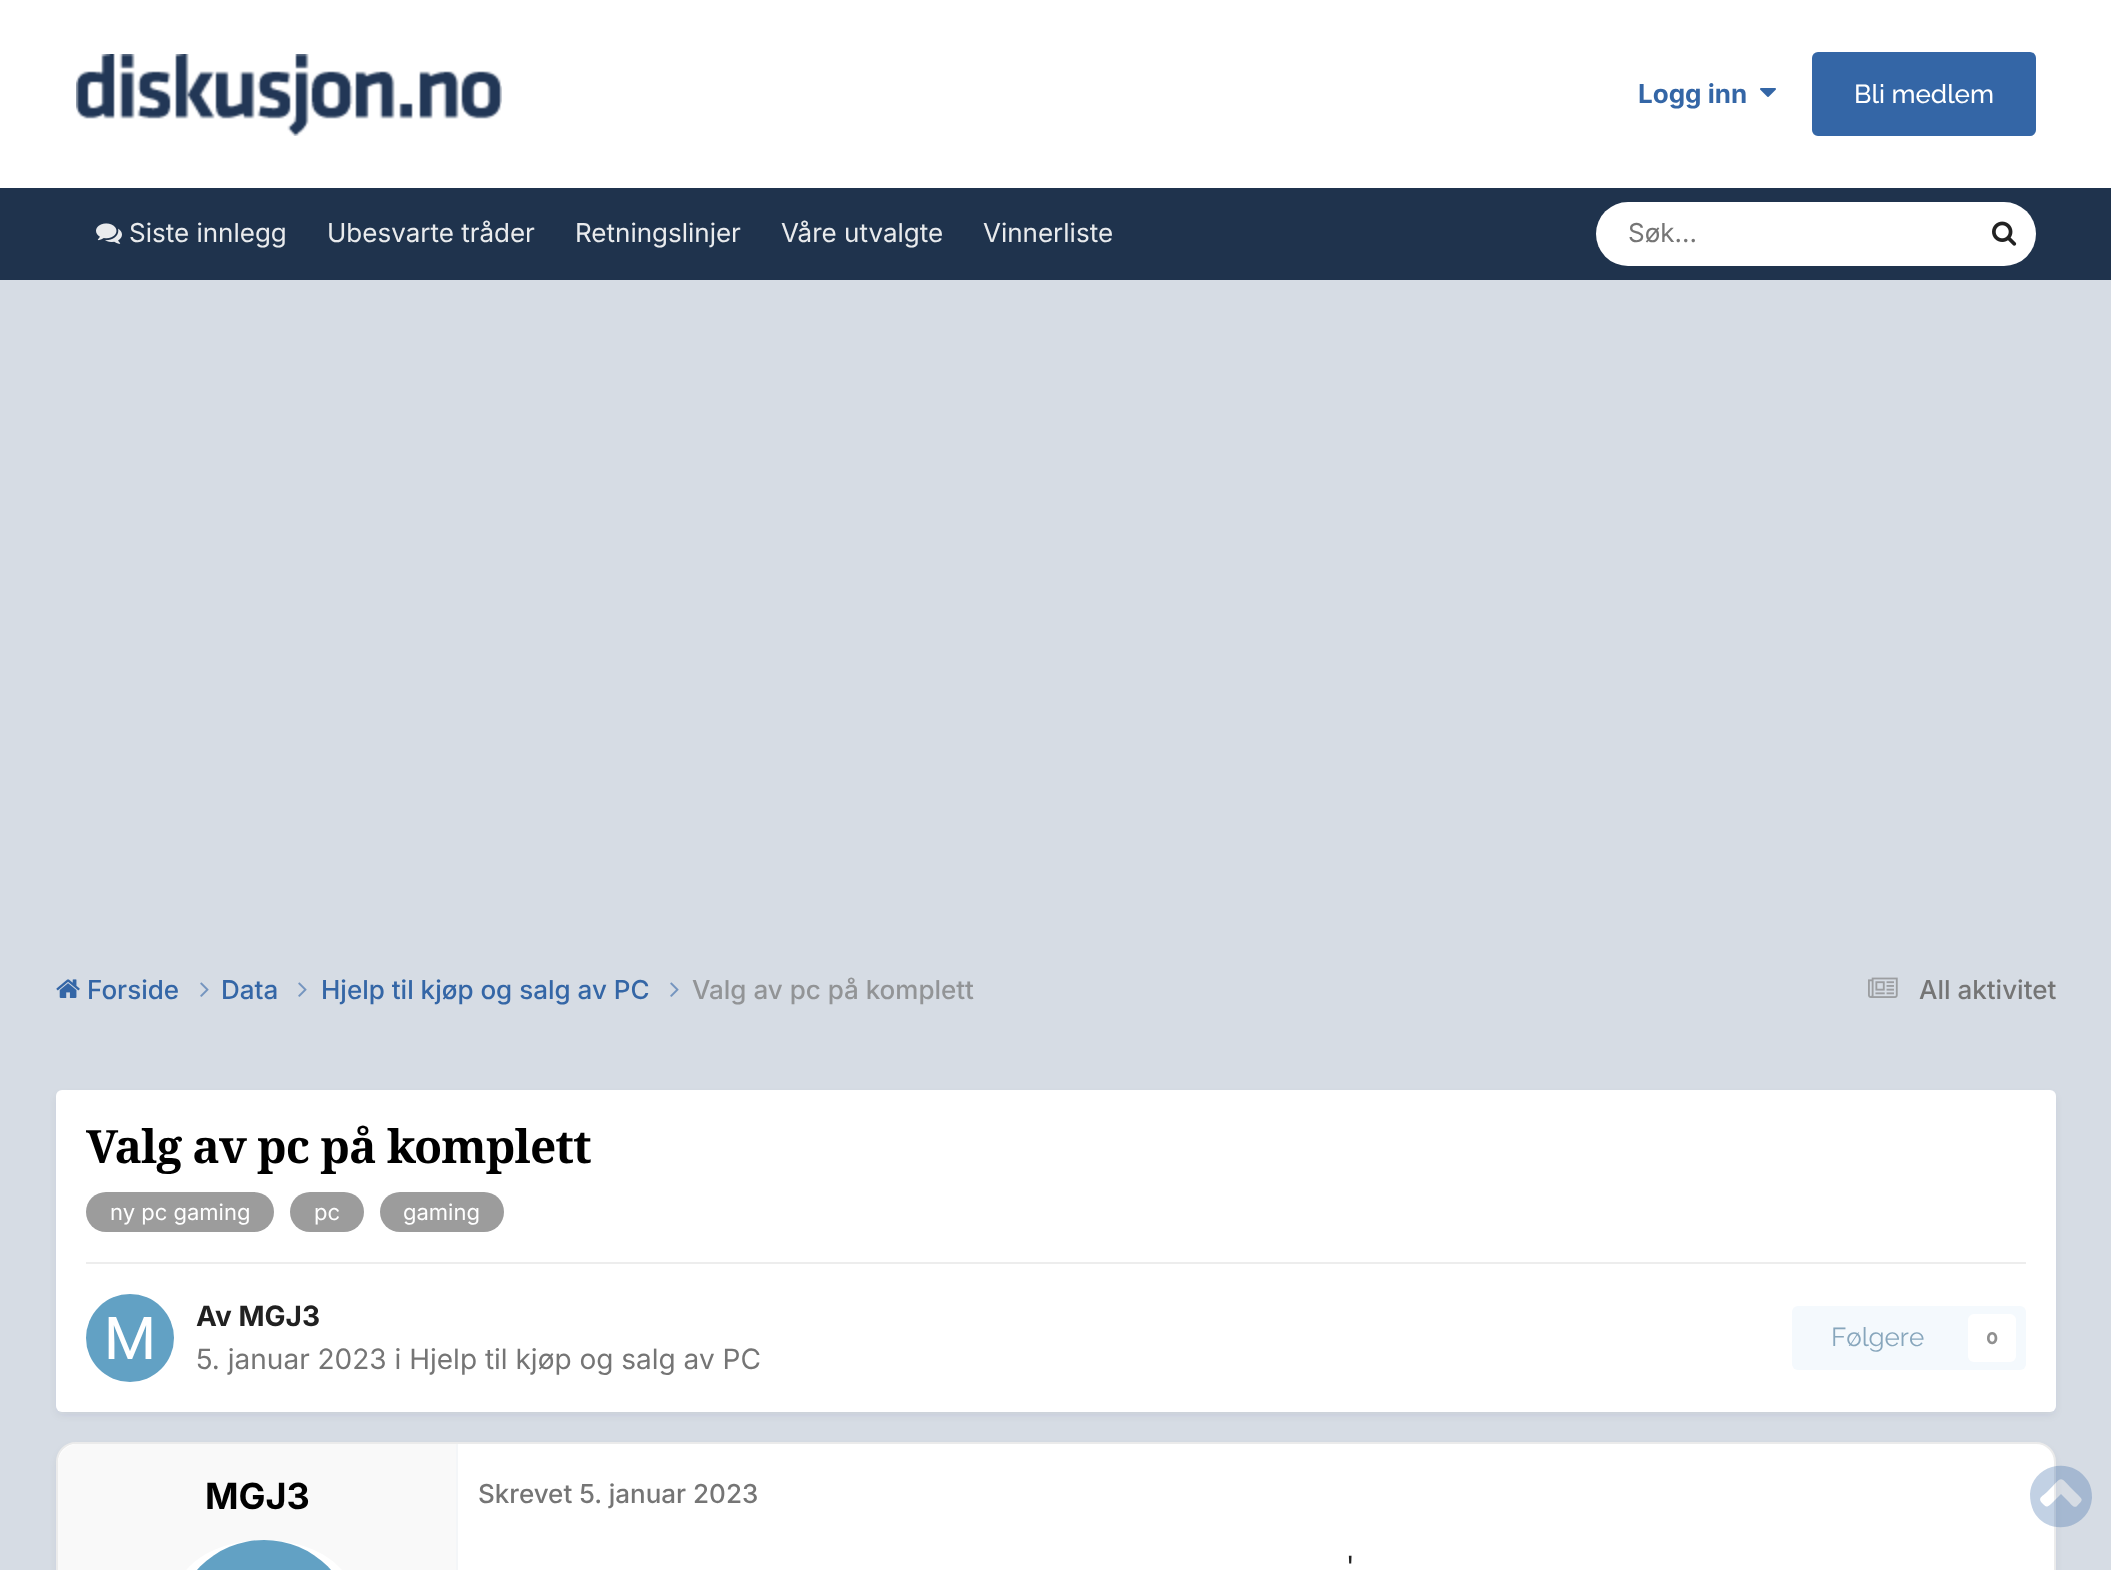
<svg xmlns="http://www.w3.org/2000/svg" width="2111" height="1570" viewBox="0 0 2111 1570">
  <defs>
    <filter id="blur1" x="-50%" y="-200%" width="200%" height="500%"><feGaussianBlur stdDeviation="4"/></filter>
  </defs>
  <rect width="100%" height="100%" fill="#d6dce4"/>
  <rect x="0" y="0" width="2111" height="188" fill="#ffffff"/>
  <image x="76" y="54" width="426" height="82" href="img1.png"/>
  <text x="1638" y="103" font-family="Inter" font-size="26" font-weight="bold" fill="#3466a6">Logg inn</text>
  <image x="1760" y="88" width="16" height="9" href="img2.png"/>
  <rect x="1812" y="52" width="224" height="84" rx="6" fill="#3466a6"/>
  <text x="1854" y="103" font-family="Raleway" font-size="26" font-weight="500" fill="#ffffff">Bli medlem</text>
  <rect x="0" y="188" width="2111" height="92" fill="#1f334d"/>
  <image x="96" y="223" width="26" height="21" href="img3.png"/>
  <text x="129" y="242" font-family="Inter" font-size="26" fill="#e9ebed">Siste innlegg</text>
  <text x="327" y="242" font-family="Inter" font-size="26" fill="#e9ebed">Ubesvarte tråder</text>
  <text x="575" y="242" font-family="Inter" font-size="26" fill="#e9ebed">Retningslinjer</text>
  <text x="781" y="242" font-family="Inter" font-size="26" fill="#e9ebed">Våre utvalgte</text>
  <text x="983" y="242" font-family="Inter" font-size="26" fill="#e9ebed">Vinnerliste</text>
  <rect x="1596" y="202" width="440" height="64" rx="32" fill="#ffffff"/>
  <text x="1628" y="242" font-family="Inter" font-size="26" fill="#757575">Søk...</text>
  <image x="1992" y="221" width="25" height="25" href="img4.png"/>
  <image x="56" y="979" width="24" height="19" href="img5.png"/>
  <text x="87" y="999" font-family="Inter" font-size="26" font-weight="500" fill="#3466a6">Forside</text>
  <image x="200" y="982" width="9" height="15" href="img6.png"/>
  <text x="221" y="999" font-family="Inter" font-size="26" font-weight="500" fill="#3466a6">Data</text>
  <image x="298" y="982" width="9" height="15" href="img6.png"/>
  <text x="321" y="999" font-family="Inter" font-size="26" font-weight="500" fill="#3466a6">Hjelp til kjøp og salg av PC</text>
  <image x="670" y="982" width="9" height="15" href="img6.png"/>
  <text x="692" y="999" font-family="Inter" font-size="26" font-weight="500" fill="#929496">Valg av pc på komplett</text>
  <image x="1868" y="977" width="30" height="21" href="img7.png"/>
  <text x="1919" y="999" font-family="Inter" font-size="26" font-weight="500" fill="#757575">All aktivitet</text>
  <rect x="58" y="1096" width="1996" height="318" rx="4" fill="#2d3748" fill-opacity="0.1" filter="url(#blur1)"/>
  <rect x="56" y="1090" width="2000" height="322" rx="6" fill="#ffffff"/>
  <text x="86" y="1163" font-family="Droid Serif" font-size="46" font-weight="bold" letter-spacing="-0.9" fill="#000000">Valg av pc på komplett</text>
  <rect x="86" y="1192" width="188" height="40" rx="20" fill="#9c9c9c"/>
  <text x="110" y="1220" font-family="Inter" font-size="22" fill="#ffffff">ny pc gaming</text>
  <rect x="290" y="1192" width="74" height="40" rx="20" fill="#9c9c9c"/>
  <text x="314" y="1220" font-family="Inter" font-size="22" fill="#ffffff">pc</text>
  <rect x="380" y="1192" width="124" height="40" rx="20" fill="#9c9c9c"/>
  <text x="403" y="1220" font-family="Inter" font-size="22" fill="#ffffff">gaming</text>
  <rect x="86" y="1262" width="1940" height="2" fill="#ededed"/>
  <image x="86" y="1294" width="88" height="88" href="img8.png"/>
  <text x="196" y="1326" font-family="Inter" font-size="28" font-weight="bold" fill="#212121">Av MGJ3</text>
  <text x="196" y="1369" font-family="Inter" font-size="28" fill="#757575">5. januar 2023 i Hjelp til kjøp og salg av PC</text>
  <rect x="1792" y="1306" width="234" height="64" rx="6" fill="#f4f9fd"/>
  <text x="1831" y="1346" font-family="Raleway" font-size="26" fill="#87a6bc">Følgere</text>
  <rect x="1968" y="1314" width="48" height="48" rx="6" fill="#ffffff"/>
  <text x="1986" y="1344" font-family="Raleway" font-size="20" font-weight="bold" fill="#909090">0</text>
  <rect x="58" y="1448" width="1996" height="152" rx="18" fill="#2d3748" fill-opacity="0.1" filter="url(#blur1)"/>
  <rect x="57" y="1443" width="1998" height="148" rx="19" fill="#ffffff" stroke="#ebebeb" stroke-width="2"/>
  <path d="M78 1444H458V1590H78C67 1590 58 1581 58 1570V1464C58 1453 67 1444 78 1444Z" fill="#f9f9f9"/>
  <rect x="456" y="1444" width="2" height="126" fill="#f4f6f8"/>
  <text x="205" y="1509" font-family="Inter" font-size="36" font-weight="bold" fill="#000000">MGJ3</text>
  <rect x="174" y="1540" width="180" height="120" rx="90" fill="#ffffff"/>
  <image x="197" y="1540" width="134" height="30" href="img9.png"/>
  <text x="478" y="1503" font-family="Inter" font-size="26" font-weight="500" fill="#757575">Skrevet 5. januar 2023</text>
  <text x="1346" y="1576" font-family="Inter" font-size="28" fill="#212121">'</text>
  <path d="M2077 1506C2084 1499 2083 1500 2075 1492C2058 1475 2064 1475 2047 1492C2043 1496 2037 1498 2042 1503C2046 1507 2046 1508 2051 1504L2061 1494L2069 1502C2070 1503 2074 1509 2077 1506ZM2088 1481C2091 1486 2092 1492 2092 1498C2090 1529 2049 1538 2034 1512C2031 1506 2030 1500 2030 1494C2032 1464 2072 1455 2088 1481Z" fill="#3466a6" fill-opacity="0.3"/>
</svg>
